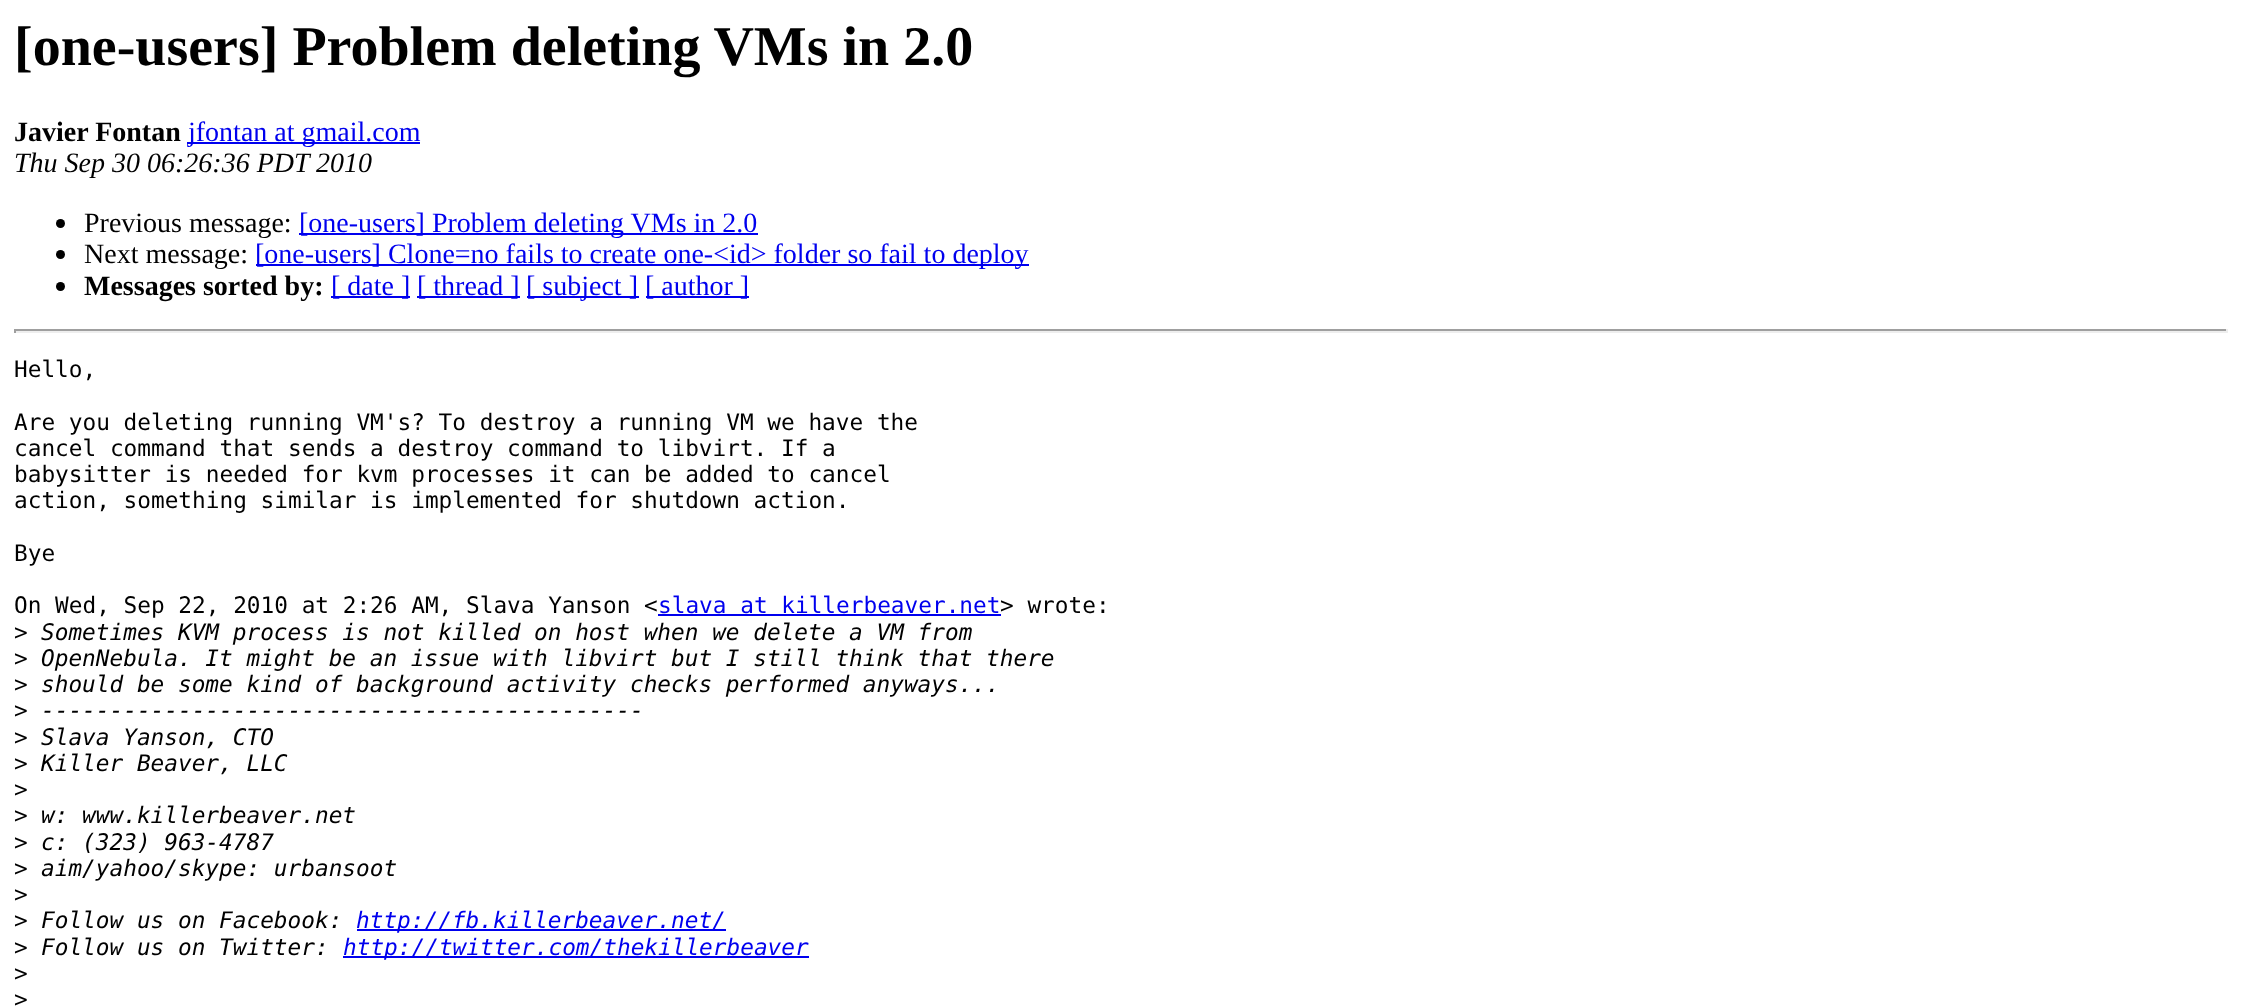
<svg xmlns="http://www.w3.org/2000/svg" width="2241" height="1006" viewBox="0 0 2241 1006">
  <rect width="100%" height="100%" fill="#ffffff"/>
  <text x="14" y="65" font-family="Liberation Serif" font-size="56" font-weight="bold" fill="#000000">[one-users] Problem deleting VMs in 2.0</text>
  <text x="14" y="141" font-family="Liberation Serif" font-size="28" font-weight="bold" fill="#000000">Javier Fontan</text>
  <rect x="187" y="142" width="233" height="2" fill="#0000ee"/>
  <text x="188" y="141" font-family="Liberation Serif" font-size="28" fill="#0000ee">jfontan at gmail.com</text>
  <text x="14" y="172" font-family="Liberation Serif" font-size="28" font-style="italic" fill="#000000">Thu Sep 30 06:26:36 PDT 2010</text>
  <circle cx="60.5" cy="223.5" r="4.5" fill="#000000"/>
  <text x="84" y="232" font-family="Liberation Serif" font-size="28" fill="#000000">Previous message:</text>
  <rect x="299" y="233" width="459" height="2" fill="#0000ee"/>
  <text x="299" y="232" font-family="Liberation Serif" font-size="28" fill="#0000ee">[one-users] Problem deleting VMs in 2.0</text>
  <circle cx="60.5" cy="254.5" r="4.5" fill="#000000"/>
  <text x="84" y="263" font-family="Liberation Serif" font-size="28" fill="#000000">Next message:</text>
  <rect x="256" y="264" width="773" height="2" fill="#0000ee"/>
  <text x="255" y="263" font-family="Liberation Serif" font-size="28" fill="#0000ee">[one-users] Clone=no fails to create one-&lt;id&gt; folder so fail to deploy</text>
  <circle cx="60.5" cy="286.5" r="4.5" fill="#000000"/>
  <text x="84" y="295" font-family="Liberation Serif" font-size="28" font-weight="bold" fill="#000000">Messages sorted by:</text>
  <rect x="331" y="296" width="79" height="2" fill="#0000ee"/>
  <text x="331" y="295" font-family="Liberation Serif" font-size="28" fill="#0000ee">[ date ]</text>
  <rect x="417" y="296" width="103" height="2" fill="#0000ee"/>
  <text x="417" y="295" font-family="Liberation Serif" font-size="28" fill="#0000ee">[ thread ]</text>
  <rect x="527" y="296" width="112" height="2" fill="#0000ee"/>
  <text x="526" y="295" font-family="Liberation Serif" font-size="28" fill="#0000ee">[ subject ]</text>
  <rect x="646" y="296" width="103" height="2" fill="#0000ee"/>
  <text x="645" y="295" font-family="Liberation Serif" font-size="28" fill="#0000ee">[ author ]</text>
  <rect x="14" y="329" width="2214" height="2" fill="#9f9f9f"/>
  <rect x="2226" y="329" width="2" height="4" fill="#eeeeee"/>
  <rect x="14" y="331" width="2214" height="2" fill="#eeeeee"/>
  <rect x="14" y="329" width="2" height="4" fill="#9f9f9f"/>
  <text x="14" y="377" font-family="DejaVu Sans Mono" font-size="22.75" fill="#000000">Hello,</text>
  <text x="14" y="430" font-family="DejaVu Sans Mono" font-size="22.75" fill="#000000">Are you deleting running VM's? To destroy a running VM we have the</text>
  <text x="14" y="456" font-family="DejaVu Sans Mono" font-size="22.75" fill="#000000">cancel command that sends a destroy command to libvirt. If a</text>
  <text x="14" y="482" font-family="DejaVu Sans Mono" font-size="22.75" fill="#000000">babysitter is needed for kvm processes it can be added to cancel</text>
  <text x="14" y="508" font-family="DejaVu Sans Mono" font-size="22.75" fill="#000000">action, something similar is implemented for shutdown action.</text>
  <text x="14" y="561" font-family="DejaVu Sans Mono" font-size="22.75" fill="#000000">Bye</text>
  <text x="14" y="613" font-family="DejaVu Sans Mono" font-size="22.75" fill="#000000">On Wed, Sep 22, 2010 at 2:26 AM, Slava Yanson &lt;</text>
  <text x="658" y="613" font-family="DejaVu Sans Mono" font-size="22.75" fill="#0000ee">slava at killerbeaver.net</text>
  <rect x="658" y="614" width="343" height="2" fill="#0000ee"/>
  <text x="1000" y="613" font-family="DejaVu Sans Mono" font-size="22.75" fill="#000000">&gt; wrote:</text>
  <text x="14" y="640" font-family="DejaVu Sans Mono" font-size="22.75" fill="#000000">&gt;</text>
  <text x="41" y="640" font-family="DejaVu Sans Mono" font-size="22.75" font-style="italic" fill="#000000">Sometimes KVM process is not killed on host when we delete a VM from</text>
  <text x="14" y="666" font-family="DejaVu Sans Mono" font-size="22.75" fill="#000000">&gt;</text>
  <text x="41" y="666" font-family="DejaVu Sans Mono" font-size="22.75" font-style="italic" fill="#000000">OpenNebula. It might be an issue with libvirt but I still think that there</text>
  <text x="14" y="692" font-family="DejaVu Sans Mono" font-size="22.75" fill="#000000">&gt;</text>
  <text x="41" y="692" font-family="DejaVu Sans Mono" font-size="22.75" font-style="italic" fill="#000000">should be some kind of background activity checks performed anyways...</text>
  <text x="14" y="718" font-family="DejaVu Sans Mono" font-size="22.75" fill="#000000">&gt;</text>
  <text x="41" y="718" font-family="DejaVu Sans Mono" font-size="22.75" font-style="italic" fill="#000000">--------------------------------------------</text>
  <text x="14" y="745" font-family="DejaVu Sans Mono" font-size="22.75" fill="#000000">&gt;</text>
  <text x="41" y="745" font-family="DejaVu Sans Mono" font-size="22.75" font-style="italic" fill="#000000">Slava Yanson, CTO</text>
  <text x="14" y="771" font-family="DejaVu Sans Mono" font-size="22.75" fill="#000000">&gt;</text>
  <text x="41" y="771" font-family="DejaVu Sans Mono" font-size="22.75" font-style="italic" fill="#000000">Killer Beaver, LLC</text>
  <text x="14" y="797" font-family="DejaVu Sans Mono" font-size="22.75" fill="#000000">&gt;</text>
  <text x="14" y="823" font-family="DejaVu Sans Mono" font-size="22.75" fill="#000000">&gt;</text>
  <text x="41" y="823" font-family="DejaVu Sans Mono" font-size="22.75" font-style="italic" fill="#000000">w: www.killerbeaver.net</text>
  <text x="14" y="850" font-family="DejaVu Sans Mono" font-size="22.75" fill="#000000">&gt;</text>
  <text x="41" y="850" font-family="DejaVu Sans Mono" font-size="22.75" font-style="italic" fill="#000000">c: (323) 963-4787</text>
  <text x="14" y="876" font-family="DejaVu Sans Mono" font-size="22.75" fill="#000000">&gt;</text>
  <text x="41" y="876" font-family="DejaVu Sans Mono" font-size="22.75" font-style="italic" fill="#000000">aim/yahoo/skype: urbansoot</text>
  <text x="14" y="902" font-family="DejaVu Sans Mono" font-size="22.75" fill="#000000">&gt;</text>
  <text x="14" y="928" font-family="DejaVu Sans Mono" font-size="22.75" fill="#000000">&gt;</text>
  <text x="41" y="928" font-family="DejaVu Sans Mono" font-size="22.75" font-style="italic" fill="#000000">Follow us on Facebook:</text>
  <rect x="357" y="929" width="369" height="2" fill="#0000ee"/>
  <text x="356" y="928" font-family="DejaVu Sans Mono" font-size="22.75" font-style="italic" fill="#0000ee">http://fb.killerbeaver.net/</text>
  <text x="14" y="955" font-family="DejaVu Sans Mono" font-size="22.75" fill="#000000">&gt;</text>
  <text x="41" y="955" font-family="DejaVu Sans Mono" font-size="22.75" font-style="italic" fill="#000000">Follow us on Twitter:</text>
  <rect x="343" y="956" width="466" height="2" fill="#0000ee"/>
  <text x="343" y="955" font-family="DejaVu Sans Mono" font-size="22.75" font-style="italic" fill="#0000ee">http://twitter.com/thekillerbeaver</text>
  <text x="14" y="981" font-family="DejaVu Sans Mono" font-size="22.75" fill="#000000">&gt;</text>
  <text x="14" y="1007" font-family="DejaVu Sans Mono" font-size="22.75" fill="#000000">&gt;</text>
</svg>
